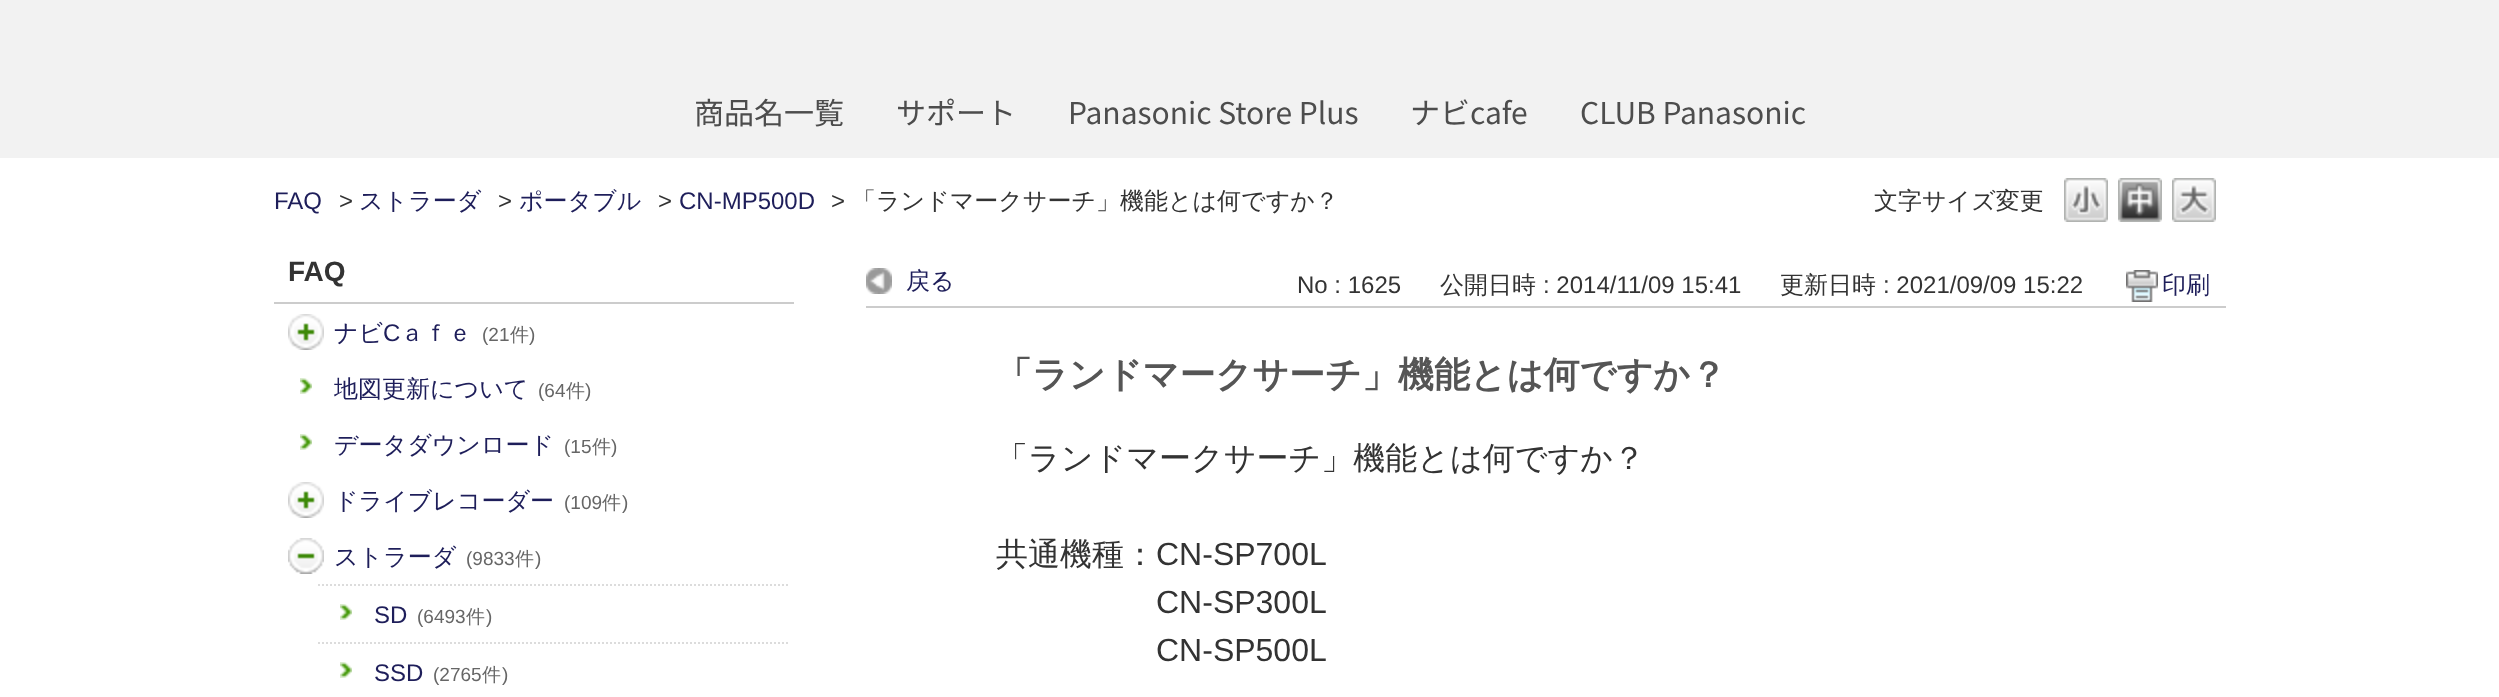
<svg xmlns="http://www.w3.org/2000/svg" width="2499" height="697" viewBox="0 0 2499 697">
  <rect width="100%" height="100%" fill="#ffffff"/>
  <rect x="0" y="0" width="2499" height="158" fill="#f2f2f2"/>
  <text x="694" y="124" font-family="Noto Sans JP" font-size="30" font-weight="100" fill="#4d4d4d">商品名一覧</text>
  <text x="896" y="124" font-family="Noto Sans JP" font-size="30" font-weight="100" fill="#4d4d4d">サポート</text>
  <text x="1068" y="124" font-family="Noto Sans JP" font-size="30" font-weight="100" fill="#4d4d4d">Panasonic Store Plus</text>
  <text x="1410" y="124" font-family="Noto Sans JP" font-size="30" font-weight="100" fill="#4d4d4d">ナビcafe</text>
  <text x="1580" y="124" font-family="Noto Sans JP" font-size="30" font-weight="100" fill="#4d4d4d">CLUB Panasonic</text>
  <text x="274" y="209" font-family="Liberation Sans" font-size="24" fill="#1e1e5a">FAQ</text>
  <text x="339" y="209" font-family="Liberation Sans" font-size="24" fill="#333333">&gt;</text>
  <text x="359" y="209" font-family="WenQuanYi Zen Hei" font-size="24" font-weight="500" fill="#1e1e5a">ストラーダ</text>
  <text x="498" y="209" font-family="Liberation Sans" font-size="24" fill="#333333">&gt;</text>
  <text x="519" y="209" font-family="WenQuanYi Zen Hei" font-size="24" font-weight="500" fill="#1e1e5a">ポータブル</text>
  <text x="658" y="209" font-family="Liberation Sans" font-size="24" fill="#333333">&gt;</text>
  <text x="679" y="209" font-family="Liberation Sans" font-size="24" fill="#1e1e5a">CN-MP500D</text>
  <text x="831" y="209" font-family="Liberation Sans" font-size="24" fill="#333333">&gt;</text>
  <text x="852" y="209" font-family="WenQuanYi Zen Hei" font-size="24" font-weight="500" fill="#333333">「ランドマークサーチ」機能とは何ですか？</text>
  <text x="1874" y="209" font-family="WenQuanYi Zen Hei" font-size="24" font-weight="500" fill="#333333">文字サイズ変更</text>
  <image x="2064" y="178" width="44" height="44" href="img1.png"/>
  <image x="2118" y="178" width="44" height="44" href="img2.png"/>
  <image x="2172" y="178" width="44" height="44" href="img3.png"/>
  <rect x="274" y="302" width="520" height="2" fill="#cccccc"/>
  <text x="288" y="281" font-family="Liberation Sans" font-size="28" font-weight="bold" fill="#333333">FAQ</text>
  <image x="288" y="314" width="36" height="36" href="img4.png"/>
  <text x="334" y="341" font-family="WenQuanYi Zen Hei" font-size="24" font-weight="500" fill="#1e1e5a">ナビ</text>
  <text x="383" y="341" font-family="Liberation Sans" font-size="24" fill="#1e1e5a">C</text>
  <text x="400" y="341" font-family="WenQuanYi Zen Hei" font-size="24" font-weight="500" fill="#1e1e5a">ａｆｅ</text>
  <text x="482" y="341" font-family="Liberation Sans" font-size="19" fill="#666666">(21</text>
  <text x="510" y="341" font-family="WenQuanYi Zen Hei" font-size="19" font-weight="500" fill="#666666">件</text>
  <text x="529" y="341" font-family="Liberation Sans" font-size="19" fill="#666666">)</text>
  <image x="300" y="378" width="12" height="16" href="img5.png"/>
  <text x="334" y="397" font-family="WenQuanYi Zen Hei" font-size="24" font-weight="500" fill="#1e1e5a">地図更新について</text>
  <text x="538" y="397" font-family="Liberation Sans" font-size="19" fill="#666666">(64</text>
  <text x="566" y="397" font-family="WenQuanYi Zen Hei" font-size="19" font-weight="500" fill="#666666">件</text>
  <text x="585" y="397" font-family="Liberation Sans" font-size="19" fill="#666666">)</text>
  <image x="300" y="434" width="12" height="16" href="img5.png"/>
  <text x="334" y="453" font-family="WenQuanYi Zen Hei" font-size="24" font-weight="500" fill="#1e1e5a">データダウンロード</text>
  <text x="564" y="453" font-family="Liberation Sans" font-size="19" fill="#666666">(15</text>
  <text x="592" y="453" font-family="WenQuanYi Zen Hei" font-size="19" font-weight="500" fill="#666666">件</text>
  <text x="611" y="453" font-family="Liberation Sans" font-size="19" fill="#666666">)</text>
  <image x="288" y="482" width="36" height="36" href="img4.png"/>
  <text x="334" y="509" font-family="WenQuanYi Zen Hei" font-size="24" font-weight="500" fill="#1e1e5a">ドライブレコーダー</text>
  <text x="564" y="509" font-family="Liberation Sans" font-size="19" fill="#666666">(109</text>
  <text x="602" y="509" font-family="WenQuanYi Zen Hei" font-size="19" font-weight="500" fill="#666666">件</text>
  <text x="622" y="509" font-family="Liberation Sans" font-size="19" fill="#666666">)</text>
  <image x="288" y="538" width="36" height="36" href="img6.png"/>
  <text x="334" y="565" font-family="WenQuanYi Zen Hei" font-size="24" font-weight="500" fill="#1e1e5a">ストラーダ</text>
  <text x="466" y="565" font-family="Liberation Sans" font-size="19" fill="#666666">(9833</text>
  <text x="515" y="565" font-family="WenQuanYi Zen Hei" font-size="19" font-weight="500" fill="#666666">件</text>
  <text x="535" y="565" font-family="Liberation Sans" font-size="19" fill="#666666">)</text>
  <path d="M318 585H790" fill="none" stroke="#dcdcdc" stroke-width="2" stroke-dasharray="2 2"/>
  <image x="340" y="604" width="12" height="16" href="img5.png"/>
  <text x="374" y="623" font-family="Liberation Sans" font-size="24" fill="#1e1e5a">SD</text>
  <text x="417" y="623" font-family="Liberation Sans" font-size="19" fill="#666666">(6493</text>
  <text x="466" y="623" font-family="WenQuanYi Zen Hei" font-size="19" font-weight="500" fill="#666666">件</text>
  <text x="486" y="623" font-family="Liberation Sans" font-size="19" fill="#666666">)</text>
  <path d="M318 643H790" fill="none" stroke="#dcdcdc" stroke-width="2" stroke-dasharray="2 2"/>
  <image x="340" y="662" width="12" height="16" href="img5.png"/>
  <text x="374" y="681" font-family="Liberation Sans" font-size="24" fill="#1e1e5a">SSD</text>
  <text x="433" y="681" font-family="Liberation Sans" font-size="19" fill="#666666">(2765</text>
  <text x="482" y="681" font-family="WenQuanYi Zen Hei" font-size="19" font-weight="500" fill="#666666">件</text>
  <text x="502" y="681" font-family="Liberation Sans" font-size="19" fill="#666666">)</text>
  <rect x="866" y="306" width="1360" height="2" fill="#cccccc"/>
  <image x="866" y="268" width="26" height="26" href="img7.png"/>
  <text x="906" y="289" font-family="WenQuanYi Zen Hei" font-size="24" font-weight="500" fill="#1e1e5a">戻る</text>
  <text x="1297" y="293" font-family="Liberation Sans" font-size="24" fill="#333333">No : 1625</text>
  <text x="1440" y="293" font-family="WenQuanYi Zen Hei" font-size="24" font-weight="500" fill="#333333">公開日時</text>
  <text x="1543" y="293" font-family="Liberation Sans" font-size="24" fill="#333333">: 2014/11/09 15:41</text>
  <text x="1780" y="293" font-family="WenQuanYi Zen Hei" font-size="24" font-weight="500" fill="#333333">更新日時</text>
  <text x="1883" y="293" font-family="Liberation Sans" font-size="24" fill="#333333">: 2021/09/09 15:22</text>
  <image x="2126" y="270" width="32" height="32" href="img8.png"/>
  <text x="2162" y="293" font-family="WenQuanYi Zen Hei" font-size="24" font-weight="500" fill="#1e1e5a">印刷</text>
  <text x="996" y="387" font-family="WenQuanYi Zen Hei" font-size="36" font-weight="bold" fill="#555555">「ランドマークサーチ」機能とは何ですか？</text>
  <text x="996" y="469" font-family="WenQuanYi Zen Hei" font-size="32" font-weight="500" fill="#333333">「ランドマークサーチ」機能とは何ですか？</text>
  <text x="996" y="565" font-family="WenQuanYi Zen Hei" font-size="32" font-weight="500" fill="#333333">共通機種：</text>
  <text x="1156" y="565" font-family="Liberation Sans" font-size="32" fill="#333333">CN-SP700L</text>
  <text x="1156" y="613" font-family="Liberation Sans" font-size="32" fill="#333333">CN-SP300L</text>
  <text x="1156" y="661" font-family="Liberation Sans" font-size="32" fill="#333333">CN-SP500L</text>
</svg>
